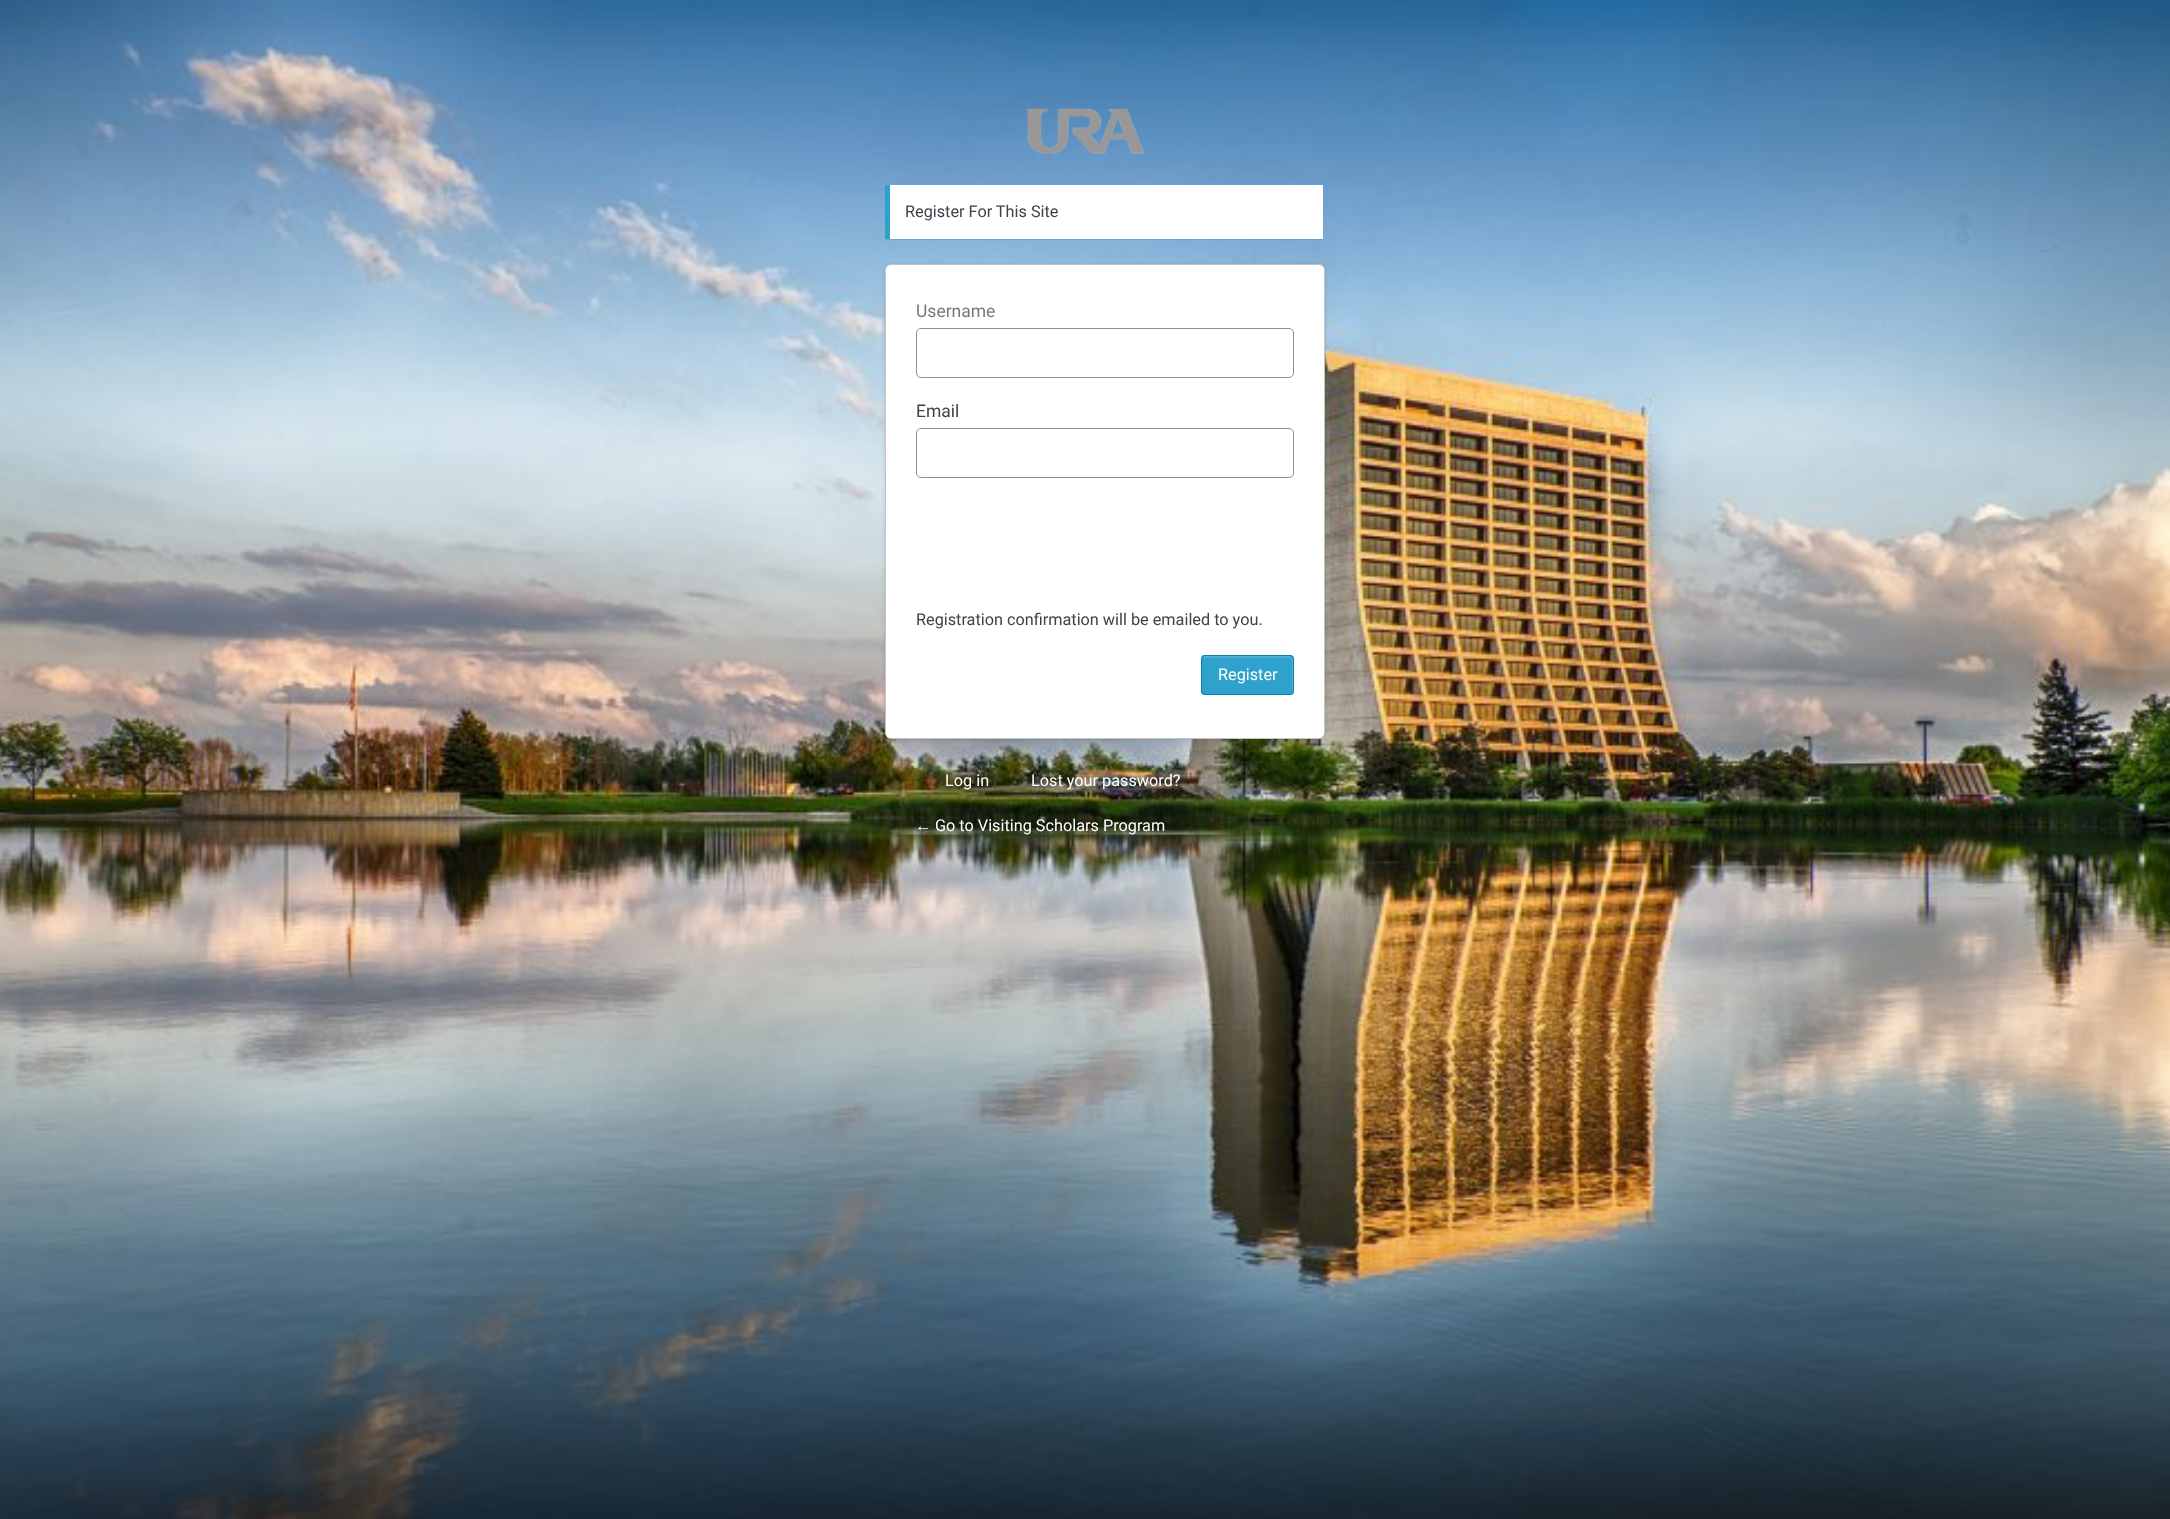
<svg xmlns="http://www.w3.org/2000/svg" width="2170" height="1519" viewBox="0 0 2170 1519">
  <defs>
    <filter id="blur1" x="-50%" y="-200%" width="200%" height="500%"><feGaussianBlur stdDeviation="0.5"/></filter>
    <filter id="blur2" x="-50%" y="-200%" width="200%" height="500%"><feGaussianBlur stdDeviation="2"/></filter>
  </defs>
  <rect width="100%" height="100%" fill="#ffffff"/>
  <image x="0" y="0" width="2170" height="1519" href="img1.png"/>
  <image x="1027" y="108" width="117" height="46" href="img2.png"/>
  <rect x="885" y="186" width="438" height="54" fill="#000000" fill-opacity="0.1" filter="url(#blur1)"/>
  <rect x="890" y="185" width="433" height="54" fill="#ffffff"/>
  <rect x="885" y="185" width="5" height="54" fill="#2ea2cc"/>
  <text x="905" y="217" font-family="Roboto" font-size="16.25" fill="#3c434a">Register For This Site</text>
  <rect x="885" y="265" width="440" height="475" rx="6" fill="#000000" fill-opacity="0.13" filter="url(#blur2)"/>
  <rect x="885.5" y="264.5" width="439" height="474" rx="5.5" fill="#ffffff" stroke="#c3c4c7"/>
  <text x="916" y="317" font-family="Roboto" font-size="17.5" fill="#777777">Username</text>
  <rect x="916.5" y="328.5" width="377" height="49" rx="4.5" fill="none" stroke="#8c8f94"/>
  <text x="916" y="417" font-family="Roboto" font-size="17.5" fill="#3c434a">Email</text>
  <rect x="916.5" y="428.5" width="377" height="49" rx="4.5" fill="none" stroke="#8c8f94"/>
  <text x="916" y="625" font-family="Roboto" font-size="16.25" fill="#3c434a">Registration confirmation will be emailed to you.</text>
  <rect x="1201" y="655" width="93" height="40" rx="4" fill="#2ea2cc"/>
  <path d="M1205 658H1290C1293 658 1292 665 1292 665V694C1292 693 1293 692 1293 692V658C1293 657 1292 656 1290 656H1206C1204 656 1203 657 1203 658Z" fill="#4db0d4"/>
  <rect x="1201.5" y="655.5" width="92" height="39" rx="3.5" fill="none" stroke="#0c80aa"/>
  <text x="1218" y="680" font-family="Roboto" font-size="16.25" fill="#ffffff">Register</text>
  <text x="945" y="786" font-family="Roboto" font-size="16.25" fill="#ffffff">Log in</text>
  <text x="993" y="786" font-family="Roboto" font-size="16.25" fill="#3c434a">|</text>
  <text x="1031" y="786" font-family="Roboto" font-size="16.25" fill="#ffffff">Lost your password?</text>
  <text x="915" y="831" font-family="Liberation Sans" font-size="16.25" fill="#ffffff">←</text>
  <text x="935" y="831" font-family="Roboto" font-size="16.25" fill="#ffffff">Go to Visiting Scholars Program</text>
</svg>
